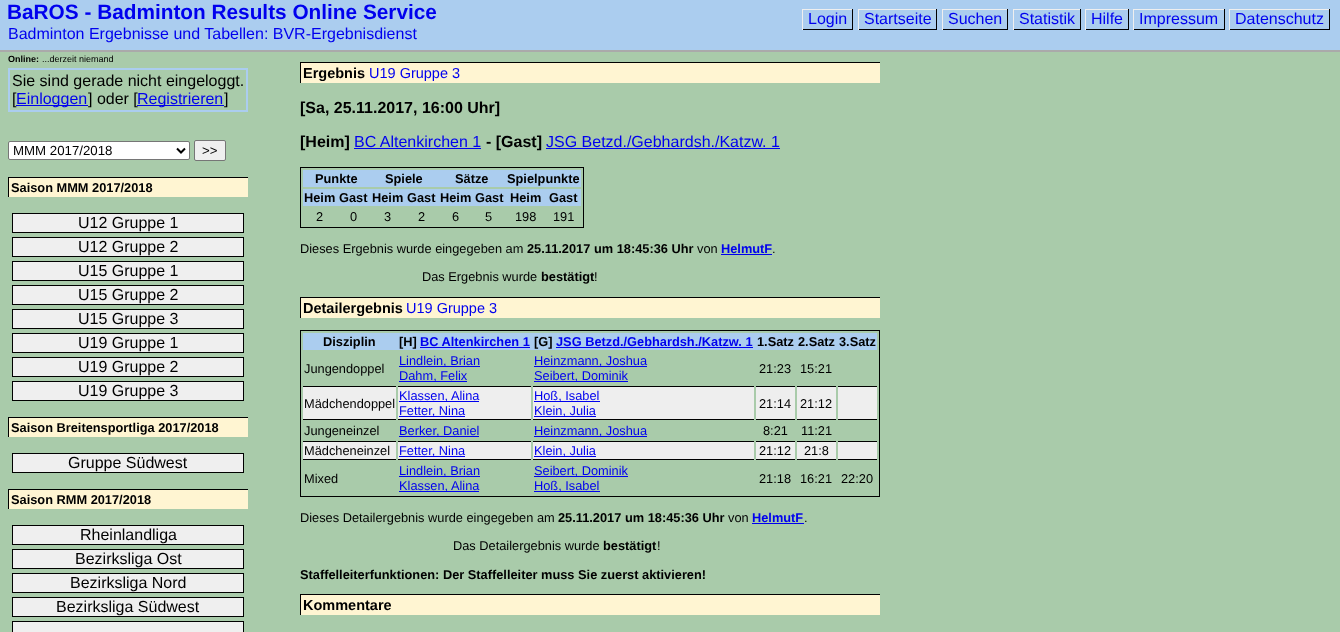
<svg xmlns="http://www.w3.org/2000/svg" width="1340" height="632" viewBox="0 0 1340 632">
  <rect width="100%" height="100%" fill="#a9cbaa"/>
  <rect x="0" y="0" width="1340" height="50" fill="#abcdef"/>
  <rect x="0" y="50" width="1340" height="2" fill="#aaaaaa"/>
  <text x="7" y="19" font-family="Liberation Sans" font-size="20.8" font-weight="bold" fill="#0000ee">BaROS - Badminton Results Online Service</text>
  <text x="8" y="39" font-family="Liberation Sans" font-size="16" fill="#0000ee">Badminton Ergebnisse und Tabellen: BVR-Ergebnisdienst</text>
  <text x="808" y="24" font-family="Liberation Sans" font-size="16" fill="#0000ee">Login</text>
  <rect x="802" y="9" width="51" height="1" fill="#efefef"/>
  <rect x="852" y="9" width="1" height="21" fill="#000000"/>
  <rect x="802" y="29" width="51" height="1" fill="#000000"/>
  <rect x="802" y="9" width="1" height="21" fill="#efefef"/>
  <text x="864" y="24" font-family="Liberation Sans" font-size="16" fill="#0000ee">Startseite</text>
  <rect x="858" y="9" width="79" height="1" fill="#efefef"/>
  <rect x="936" y="9" width="1" height="21" fill="#000000"/>
  <rect x="858" y="29" width="79" height="1" fill="#000000"/>
  <rect x="858" y="9" width="1" height="21" fill="#efefef"/>
  <text x="948" y="24" font-family="Liberation Sans" font-size="16" fill="#0000ee">Suchen</text>
  <rect x="942" y="9" width="66" height="1" fill="#efefef"/>
  <rect x="1007" y="9" width="1" height="21" fill="#000000"/>
  <rect x="942" y="29" width="66" height="1" fill="#000000"/>
  <rect x="942" y="9" width="1" height="21" fill="#efefef"/>
  <text x="1019" y="24" font-family="Liberation Sans" font-size="16" fill="#0000ee">Statistik</text>
  <rect x="1013" y="9" width="68" height="1" fill="#efefef"/>
  <rect x="1080" y="9" width="1" height="21" fill="#000000"/>
  <rect x="1013" y="29" width="68" height="1" fill="#000000"/>
  <rect x="1013" y="9" width="1" height="21" fill="#efefef"/>
  <text x="1091" y="24" font-family="Liberation Sans" font-size="16" fill="#0000ee">Hilfe</text>
  <rect x="1085" y="9" width="44" height="1" fill="#efefef"/>
  <rect x="1128" y="9" width="1" height="21" fill="#000000"/>
  <rect x="1085" y="29" width="44" height="1" fill="#000000"/>
  <rect x="1085" y="9" width="1" height="21" fill="#efefef"/>
  <text x="1139" y="24" font-family="Liberation Sans" font-size="16" fill="#0000ee">Impressum</text>
  <rect x="1133" y="9" width="92" height="1" fill="#efefef"/>
  <rect x="1224" y="9" width="1" height="21" fill="#000000"/>
  <rect x="1133" y="29" width="92" height="1" fill="#000000"/>
  <rect x="1133" y="9" width="1" height="21" fill="#efefef"/>
  <text x="1235" y="24" font-family="Liberation Sans" font-size="16" fill="#0000ee">Datenschutz</text>
  <rect x="1229" y="9" width="101" height="1" fill="#efefef"/>
  <rect x="1329" y="9" width="1" height="21" fill="#000000"/>
  <rect x="1229" y="29" width="101" height="1" fill="#000000"/>
  <rect x="1229" y="9" width="1" height="21" fill="#efefef"/>
  <text x="8" y="62" font-family="Liberation Sans" font-size="9" font-weight="bold" fill="#000000">Online:</text>
  <text x="42" y="62" font-family="Liberation Sans" font-size="9" fill="#000000">...derzeit niemand</text>
  <rect x="9" y="69" width="238" height="42" fill="none" stroke="#abcdef" stroke-width="2"/>
  <text x="12" y="86" font-family="Liberation Sans" font-size="16" fill="#000000">Sie sind gerade nicht eingeloggt.</text>
  <text x="12" y="104" font-family="Liberation Sans" font-size="16" fill="#000000">[</text>
  <rect x="16" y="105" width="72" height="1" fill="#0000ee"/>
  <text x="16" y="104" font-family="Liberation Sans" font-size="16" fill="#0000ee">Einloggen</text>
  <text x="88" y="104" font-family="Liberation Sans" font-size="16" fill="#000000">] oder [</text>
  <rect x="137" y="105" width="87" height="1" fill="#0000ee"/>
  <text x="137" y="104" font-family="Liberation Sans" font-size="16" fill="#0000ee">Registrieren</text>
  <text x="224" y="104" font-family="Liberation Sans" font-size="16" fill="#000000">]</text>
  <rect x="301" y="63" width="579" height="20" fill="#fff5d2"/>
  <rect x="300" y="62" width="580" height="1" fill="#000000"/>
  <rect x="300" y="62" width="1" height="21" fill="#000000"/>
  <text x="303" y="78" font-family="Liberation Sans" font-size="14.5" font-weight="bold" fill="#000000">Ergebnis</text>
  <text x="369" y="78" font-family="Liberation Sans" font-size="14.5" fill="#0000ee">U19 Gruppe 3</text>
  <text x="300" y="113" font-family="Liberation Sans" font-size="16" font-weight="bold" fill="#000000">[Sa, 25.11.2017, 16:00 Uhr]</text>
  <text x="300" y="147" font-family="Liberation Sans" font-size="16" font-weight="bold" fill="#000000">[Heim]</text>
  <text x="354" y="147" font-family="Liberation Sans" font-size="16" fill="#0000ee">BC Altenkirchen 1</text>
  <rect x="354" y="148" width="127" height="1" fill="#0000ee"/>
  <text x="486" y="147" font-family="Liberation Sans" font-size="16" font-weight="bold" fill="#000000">- [Gast]</text>
  <text x="546" y="147" font-family="Liberation Sans" font-size="16" fill="#0000ee">JSG Betzd./Gebhardsh./Katzw. 1</text>
  <rect x="546" y="148" width="234" height="1" fill="#0000ee"/>
  <rect x="300.5" y="167.5" width="283" height="60" fill="none" stroke="#000000"/>
  <rect x="303" y="170" width="278" height="17" fill="#abcdef"/>
  <text x="315" y="183" font-family="Liberation Sans" font-size="12.8" font-weight="bold" fill="#000000">Punkte</text>
  <text x="385" y="183" font-family="Liberation Sans" font-size="12.8" font-weight="bold" fill="#000000">Spiele</text>
  <text x="455" y="183" font-family="Liberation Sans" font-size="12.8" font-weight="bold" fill="#000000">Sätze</text>
  <text x="507" y="183" font-family="Liberation Sans" font-size="12.8" font-weight="bold" fill="#000000">Spielpunkte</text>
  <rect x="303" y="189" width="278" height="17" fill="#abcdef"/>
  <text x="304" y="202" font-family="Liberation Sans" font-size="12.8" font-weight="bold" fill="#000000">Heim</text>
  <text x="339" y="202" font-family="Liberation Sans" font-size="12.8" font-weight="bold" fill="#000000">Gast</text>
  <text x="372" y="202" font-family="Liberation Sans" font-size="12.8" font-weight="bold" fill="#000000">Heim</text>
  <text x="407" y="202" font-family="Liberation Sans" font-size="12.8" font-weight="bold" fill="#000000">Gast</text>
  <text x="440" y="202" font-family="Liberation Sans" font-size="12.8" font-weight="bold" fill="#000000">Heim</text>
  <text x="475" y="202" font-family="Liberation Sans" font-size="12.8" font-weight="bold" fill="#000000">Gast</text>
  <text x="510" y="202" font-family="Liberation Sans" font-size="12.8" font-weight="bold" fill="#000000">Heim</text>
  <text x="549" y="202" font-family="Liberation Sans" font-size="12.8" font-weight="bold" fill="#000000">Gast</text>
  <text x="316" y="221" font-family="Liberation Sans" font-size="12.8" fill="#000000">2</text>
  <text x="350" y="221" font-family="Liberation Sans" font-size="12.8" fill="#000000">0</text>
  <text x="384" y="221" font-family="Liberation Sans" font-size="12.8" fill="#000000">3</text>
  <text x="418" y="221" font-family="Liberation Sans" font-size="12.8" fill="#000000">2</text>
  <text x="452" y="221" font-family="Liberation Sans" font-size="12.8" fill="#000000">6</text>
  <text x="485" y="221" font-family="Liberation Sans" font-size="12.8" fill="#000000">5</text>
  <text x="515" y="221" font-family="Liberation Sans" font-size="12.8" fill="#000000">198</text>
  <text x="553" y="221" font-family="Liberation Sans" font-size="12.8" fill="#000000">191</text>
  <text x="300" y="253" font-family="Liberation Sans" font-size="12.8" fill="#000000">Dieses Ergebnis wurde eingegeben am</text>
  <text x="527" y="253" font-family="Liberation Sans" font-size="12.8" font-weight="bold" fill="#000000">25.11.2017 um 18:45:36 Uhr</text>
  <text x="697" y="253" font-family="Liberation Sans" font-size="12.8" fill="#000000">von</text>
  <text x="721" y="253" font-family="Liberation Sans" font-size="12.8" font-weight="bold" fill="#0000ee">HelmutF</text>
  <rect x="721" y="254" width="51" height="1" fill="#0000ee"/>
  <text x="772" y="253" font-family="Liberation Sans" font-size="12.8" fill="#000000">.</text>
  <text x="422" y="281" font-family="Liberation Sans" font-size="12.8" fill="#000000">Das Ergebnis wurde</text>
  <text x="541" y="281" font-family="Liberation Sans" font-size="12.8" font-weight="bold" fill="#000000">bestätigt</text>
  <text x="594" y="281" font-family="Liberation Sans" font-size="12.8" fill="#000000">!</text>
  <rect x="301" y="298" width="579" height="20" fill="#fff5d2"/>
  <rect x="300" y="297" width="580" height="1" fill="#000000"/>
  <rect x="300" y="297" width="1" height="21" fill="#000000"/>
  <text x="303" y="313" font-family="Liberation Sans" font-size="14.5" font-weight="bold" fill="#000000">Detailergebnis</text>
  <text x="406" y="313" font-family="Liberation Sans" font-size="14.5" fill="#0000ee">U19 Gruppe 3</text>
  <rect x="300.5" y="330.5" width="579" height="166" fill="none" stroke="#000000"/>
  <rect x="303" y="333" width="574" height="17" fill="#abcdef"/>
  <text x="323" y="346" font-family="Liberation Sans" font-size="12.8" font-weight="bold" fill="#000000">Disziplin</text>
  <text x="399" y="346" font-family="Liberation Sans" font-size="12.8" font-weight="bold" fill="#000000">[H]</text>
  <text x="420" y="346" font-family="Liberation Sans" font-size="12.8" font-weight="bold" fill="#0000ee">BC Altenkirchen 1</text>
  <rect x="420" y="347" width="110" height="1" fill="#0000ee"/>
  <text x="534" y="346" font-family="Liberation Sans" font-size="12.8" font-weight="bold" fill="#000000">[G]</text>
  <text x="556" y="346" font-family="Liberation Sans" font-size="12.8" font-weight="bold" fill="#0000ee">JSG Betzd./Gebhardsh./Katzw. 1</text>
  <rect x="556" y="347" width="197" height="1" fill="#0000ee"/>
  <text x="757" y="346" font-family="Liberation Sans" font-size="12.8" font-weight="bold" fill="#000000">1.Satz</text>
  <text x="798" y="346" font-family="Liberation Sans" font-size="12.8" font-weight="bold" fill="#000000">2.Satz</text>
  <text x="839" y="346" font-family="Liberation Sans" font-size="12.8" font-weight="bold" fill="#000000">3.Satz</text>
  <text x="304" y="373" font-family="Liberation Sans" font-size="12.8" fill="#000000">Jungendoppel</text>
  <rect x="399" y="366" width="81" height="1" fill="#0000ee"/>
  <text x="399" y="365" font-family="Liberation Sans" font-size="12.8" fill="#0000ee">Lindlein, Brian</text>
  <rect x="399" y="381" width="68" height="1" fill="#0000ee"/>
  <text x="399" y="380" font-family="Liberation Sans" font-size="12.8" fill="#0000ee">Dahm, Felix</text>
  <rect x="534" y="366" width="113" height="1" fill="#0000ee"/>
  <text x="534" y="365" font-family="Liberation Sans" font-size="12.8" fill="#0000ee">Heinzmann, Joshua</text>
  <rect x="534" y="381" width="94" height="1" fill="#0000ee"/>
  <text x="534" y="380" font-family="Liberation Sans" font-size="12.8" fill="#0000ee">Seibert, Dominik</text>
  <text x="759" y="373" font-family="Liberation Sans" font-size="12.8" fill="#000000">21:23</text>
  <text x="800" y="373" font-family="Liberation Sans" font-size="12.8" fill="#000000">15:21</text>
  <rect x="303" y="387" width="93" height="32" fill="#eeeeee"/>
  <rect x="303" y="386" width="93" height="1" fill="#000000"/>
  <rect x="303" y="419" width="93" height="1" fill="#000000"/>
  <text x="304" y="408" font-family="Liberation Sans" font-size="12.8" fill="#000000">Mädchendoppel</text>
  <rect x="398" y="387" width="133" height="32" fill="#eeeeee"/>
  <rect x="398" y="386" width="133" height="1" fill="#000000"/>
  <rect x="398" y="419" width="133" height="1" fill="#000000"/>
  <rect x="399" y="401" width="80" height="1" fill="#0000ee"/>
  <text x="399" y="400" font-family="Liberation Sans" font-size="12.8" fill="#0000ee">Klassen, Alina</text>
  <rect x="399" y="416" width="66" height="1" fill="#0000ee"/>
  <text x="399" y="415" font-family="Liberation Sans" font-size="12.8" fill="#0000ee">Fetter, Nina</text>
  <rect x="533" y="387" width="221" height="32" fill="#eeeeee"/>
  <rect x="533" y="386" width="221" height="1" fill="#000000"/>
  <rect x="533" y="419" width="221" height="1" fill="#000000"/>
  <rect x="534" y="401" width="66" height="1" fill="#0000ee"/>
  <text x="534" y="400" font-family="Liberation Sans" font-size="12.8" fill="#0000ee">Hoß, Isabel</text>
  <rect x="534" y="416" width="62" height="1" fill="#0000ee"/>
  <text x="534" y="415" font-family="Liberation Sans" font-size="12.8" fill="#0000ee">Klein, Julia</text>
  <rect x="756" y="387" width="39" height="32" fill="#eeeeee"/>
  <rect x="756" y="386" width="39" height="1" fill="#000000"/>
  <rect x="756" y="419" width="39" height="1" fill="#000000"/>
  <text x="759" y="408" font-family="Liberation Sans" font-size="12.8" fill="#000000">21:14</text>
  <rect x="797" y="387" width="39" height="32" fill="#eeeeee"/>
  <rect x="797" y="386" width="39" height="1" fill="#000000"/>
  <rect x="797" y="419" width="39" height="1" fill="#000000"/>
  <text x="800" y="408" font-family="Liberation Sans" font-size="12.8" fill="#000000">21:12</text>
  <rect x="838" y="387" width="39" height="32" fill="#eeeeee"/>
  <rect x="838" y="386" width="39" height="1" fill="#000000"/>
  <rect x="838" y="419" width="39" height="1" fill="#000000"/>
  <text x="304" y="435" font-family="Liberation Sans" font-size="12.8" fill="#000000">Jungeneinzel</text>
  <rect x="399" y="436" width="80" height="1" fill="#0000ee"/>
  <text x="399" y="435" font-family="Liberation Sans" font-size="12.8" fill="#0000ee">Berker, Daniel</text>
  <rect x="534" y="436" width="113" height="1" fill="#0000ee"/>
  <text x="534" y="435" font-family="Liberation Sans" font-size="12.8" fill="#0000ee">Heinzmann, Joshua</text>
  <text x="763" y="435" font-family="Liberation Sans" font-size="12.8" fill="#000000">8:21</text>
  <text x="801" y="435" font-family="Liberation Sans" font-size="12.8" fill="#000000">11:21</text>
  <rect x="303" y="442" width="93" height="17" fill="#eeeeee"/>
  <rect x="303" y="441" width="93" height="1" fill="#000000"/>
  <rect x="303" y="459" width="93" height="1" fill="#000000"/>
  <text x="304" y="455" font-family="Liberation Sans" font-size="12.8" fill="#000000">Mädcheneinzel</text>
  <rect x="398" y="442" width="133" height="17" fill="#eeeeee"/>
  <rect x="398" y="441" width="133" height="1" fill="#000000"/>
  <rect x="398" y="459" width="133" height="1" fill="#000000"/>
  <rect x="399" y="456" width="66" height="1" fill="#0000ee"/>
  <text x="399" y="455" font-family="Liberation Sans" font-size="12.8" fill="#0000ee">Fetter, Nina</text>
  <rect x="533" y="442" width="221" height="17" fill="#eeeeee"/>
  <rect x="533" y="441" width="221" height="1" fill="#000000"/>
  <rect x="533" y="459" width="221" height="1" fill="#000000"/>
  <rect x="534" y="456" width="62" height="1" fill="#0000ee"/>
  <text x="534" y="455" font-family="Liberation Sans" font-size="12.8" fill="#0000ee">Klein, Julia</text>
  <rect x="756" y="442" width="39" height="17" fill="#eeeeee"/>
  <rect x="756" y="441" width="39" height="1" fill="#000000"/>
  <rect x="756" y="459" width="39" height="1" fill="#000000"/>
  <text x="759" y="455" font-family="Liberation Sans" font-size="12.8" fill="#000000">21:12</text>
  <rect x="797" y="442" width="39" height="17" fill="#eeeeee"/>
  <rect x="797" y="441" width="39" height="1" fill="#000000"/>
  <rect x="797" y="459" width="39" height="1" fill="#000000"/>
  <text x="804" y="455" font-family="Liberation Sans" font-size="12.8" fill="#000000">21:8</text>
  <rect x="838" y="442" width="39" height="17" fill="#eeeeee"/>
  <rect x="838" y="441" width="39" height="1" fill="#000000"/>
  <rect x="838" y="459" width="39" height="1" fill="#000000"/>
  <text x="304" y="483" font-family="Liberation Sans" font-size="12.8" fill="#000000">Mixed</text>
  <rect x="399" y="476" width="81" height="1" fill="#0000ee"/>
  <text x="399" y="475" font-family="Liberation Sans" font-size="12.8" fill="#0000ee">Lindlein, Brian</text>
  <rect x="399" y="491" width="80" height="1" fill="#0000ee"/>
  <text x="399" y="490" font-family="Liberation Sans" font-size="12.8" fill="#0000ee">Klassen, Alina</text>
  <rect x="534" y="476" width="94" height="1" fill="#0000ee"/>
  <text x="534" y="475" font-family="Liberation Sans" font-size="12.8" fill="#0000ee">Seibert, Dominik</text>
  <rect x="534" y="491" width="66" height="1" fill="#0000ee"/>
  <text x="534" y="490" font-family="Liberation Sans" font-size="12.8" fill="#0000ee">Hoß, Isabel</text>
  <text x="759" y="483" font-family="Liberation Sans" font-size="12.8" fill="#000000">21:18</text>
  <text x="800" y="483" font-family="Liberation Sans" font-size="12.8" fill="#000000">16:21</text>
  <text x="841" y="483" font-family="Liberation Sans" font-size="12.8" fill="#000000">22:20</text>
  <text x="300" y="522" font-family="Liberation Sans" font-size="12.8" fill="#000000">Dieses Detailergebnis wurde eingegeben am</text>
  <text x="558" y="522" font-family="Liberation Sans" font-size="12.8" font-weight="bold" fill="#000000">25.11.2017 um 18:45:36 Uhr</text>
  <text x="728" y="522" font-family="Liberation Sans" font-size="12.8" fill="#000000">von</text>
  <text x="752" y="522" font-family="Liberation Sans" font-size="12.8" font-weight="bold" fill="#0000ee">HelmutF</text>
  <rect x="752" y="523" width="52" height="1" fill="#0000ee"/>
  <text x="804" y="522" font-family="Liberation Sans" font-size="12.8" fill="#000000">.</text>
  <text x="453" y="550" font-family="Liberation Sans" font-size="12.8" fill="#000000">Das Detailergebnis wurde</text>
  <text x="603" y="550" font-family="Liberation Sans" font-size="12.8" font-weight="bold" fill="#000000">bestätigt</text>
  <text x="657" y="550" font-family="Liberation Sans" font-size="12.8" fill="#000000">!</text>
  <text x="300" y="579" font-family="Liberation Sans" font-size="12.8" font-weight="bold" fill="#000000">Staffelleiterfunktionen: Der Staffelleiter muss Sie zuerst aktivieren!</text>
  <rect x="301" y="595" width="579" height="20" fill="#fff5d2"/>
  <rect x="300" y="594" width="580" height="1" fill="#000000"/>
  <rect x="300" y="594" width="1" height="21" fill="#000000"/>
  <text x="303" y="610" font-family="Liberation Sans" font-size="14.5" font-weight="bold" fill="#000000">Kommentare</text>
  <rect x="8.5" y="141.5" width="181" height="18" rx="1.5" fill="#ffffff" stroke="#767676"/>
  <path d="M177 148.5L181 152.5L185 148.5" fill="none" stroke="#000000" stroke-width="2"/>
  <text x="13" y="155" font-family="Liberation Sans" font-size="13.25" fill="#000000">MMM 2017/2018</text>
  <rect x="194.5" y="140.5" width="31" height="20" rx="1.5" fill="#efefef" stroke="#767676"/>
  <text x="202" y="155" font-family="Liberation Sans" font-size="13.25" fill="#000000">&gt;&gt;</text>
  <rect x="9" y="178" width="239" height="19" fill="#fff5d2"/>
  <rect x="8" y="177" width="240" height="1" fill="#000000"/>
  <rect x="8" y="177" width="1" height="20" fill="#000000"/>
  <text x="11" y="192" font-family="Liberation Sans" font-size="12.8" font-weight="bold" fill="#000000">Saison MMM 2017/2018</text>
  <rect x="12.5" y="213.5" width="231" height="19" fill="#efefef" stroke="#000000"/>
  <text x="78" y="228" font-family="Liberation Sans" font-size="16" fill="#000000">U12 Gruppe 1</text>
  <rect x="12.5" y="237.5" width="231" height="19" fill="#efefef" stroke="#000000"/>
  <text x="78" y="252" font-family="Liberation Sans" font-size="16" fill="#000000">U12 Gruppe 2</text>
  <rect x="12.5" y="261.5" width="231" height="19" fill="#efefef" stroke="#000000"/>
  <text x="78" y="276" font-family="Liberation Sans" font-size="16" fill="#000000">U15 Gruppe 1</text>
  <rect x="12.5" y="285.5" width="231" height="19" fill="#efefef" stroke="#000000"/>
  <text x="78" y="300" font-family="Liberation Sans" font-size="16" fill="#000000">U15 Gruppe 2</text>
  <rect x="12.5" y="309.5" width="231" height="19" fill="#efefef" stroke="#000000"/>
  <text x="78" y="324" font-family="Liberation Sans" font-size="16" fill="#000000">U15 Gruppe 3</text>
  <rect x="12.5" y="333.5" width="231" height="19" fill="#efefef" stroke="#000000"/>
  <text x="78" y="348" font-family="Liberation Sans" font-size="16" fill="#000000">U19 Gruppe 1</text>
  <rect x="12.5" y="357.5" width="231" height="19" fill="#efefef" stroke="#000000"/>
  <text x="78" y="372" font-family="Liberation Sans" font-size="16" fill="#000000">U19 Gruppe 2</text>
  <rect x="12.5" y="381.5" width="231" height="19" fill="#efefef" stroke="#000000"/>
  <text x="78" y="396" font-family="Liberation Sans" font-size="16" fill="#000000">U19 Gruppe 3</text>
  <rect x="9" y="418" width="239" height="19" fill="#fff5d2"/>
  <rect x="8" y="417" width="240" height="1" fill="#000000"/>
  <rect x="8" y="417" width="1" height="20" fill="#000000"/>
  <text x="11" y="432" font-family="Liberation Sans" font-size="12.8" font-weight="bold" fill="#000000">Saison Breitensportliga 2017/2018</text>
  <rect x="12.5" y="453.5" width="231" height="19" fill="#efefef" stroke="#000000"/>
  <text x="68" y="468" font-family="Liberation Sans" font-size="16" fill="#000000">Gruppe Südwest</text>
  <rect x="9" y="490" width="239" height="19" fill="#fff5d2"/>
  <rect x="8" y="489" width="240" height="1" fill="#000000"/>
  <rect x="8" y="489" width="1" height="20" fill="#000000"/>
  <text x="11" y="504" font-family="Liberation Sans" font-size="12.8" font-weight="bold" fill="#000000">Saison RMM 2017/2018</text>
  <rect x="12.5" y="525.5" width="231" height="19" fill="#efefef" stroke="#000000"/>
  <text x="80" y="540" font-family="Liberation Sans" font-size="16" fill="#000000">Rheinlandliga</text>
  <rect x="12.5" y="549.5" width="231" height="19" fill="#efefef" stroke="#000000"/>
  <text x="75" y="564" font-family="Liberation Sans" font-size="16" fill="#000000">Bezirksliga Ost</text>
  <rect x="12.5" y="573.5" width="231" height="19" fill="#efefef" stroke="#000000"/>
  <text x="70" y="588" font-family="Liberation Sans" font-size="16" fill="#000000">Bezirksliga Nord</text>
  <rect x="12.5" y="597.5" width="231" height="19" fill="#efefef" stroke="#000000"/>
  <text x="56" y="612" font-family="Liberation Sans" font-size="16" fill="#000000">Bezirksliga Südwest</text>
  <rect x="12.5" y="621.5" width="231" height="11" fill="#efefef" stroke="#000000"/>
</svg>
